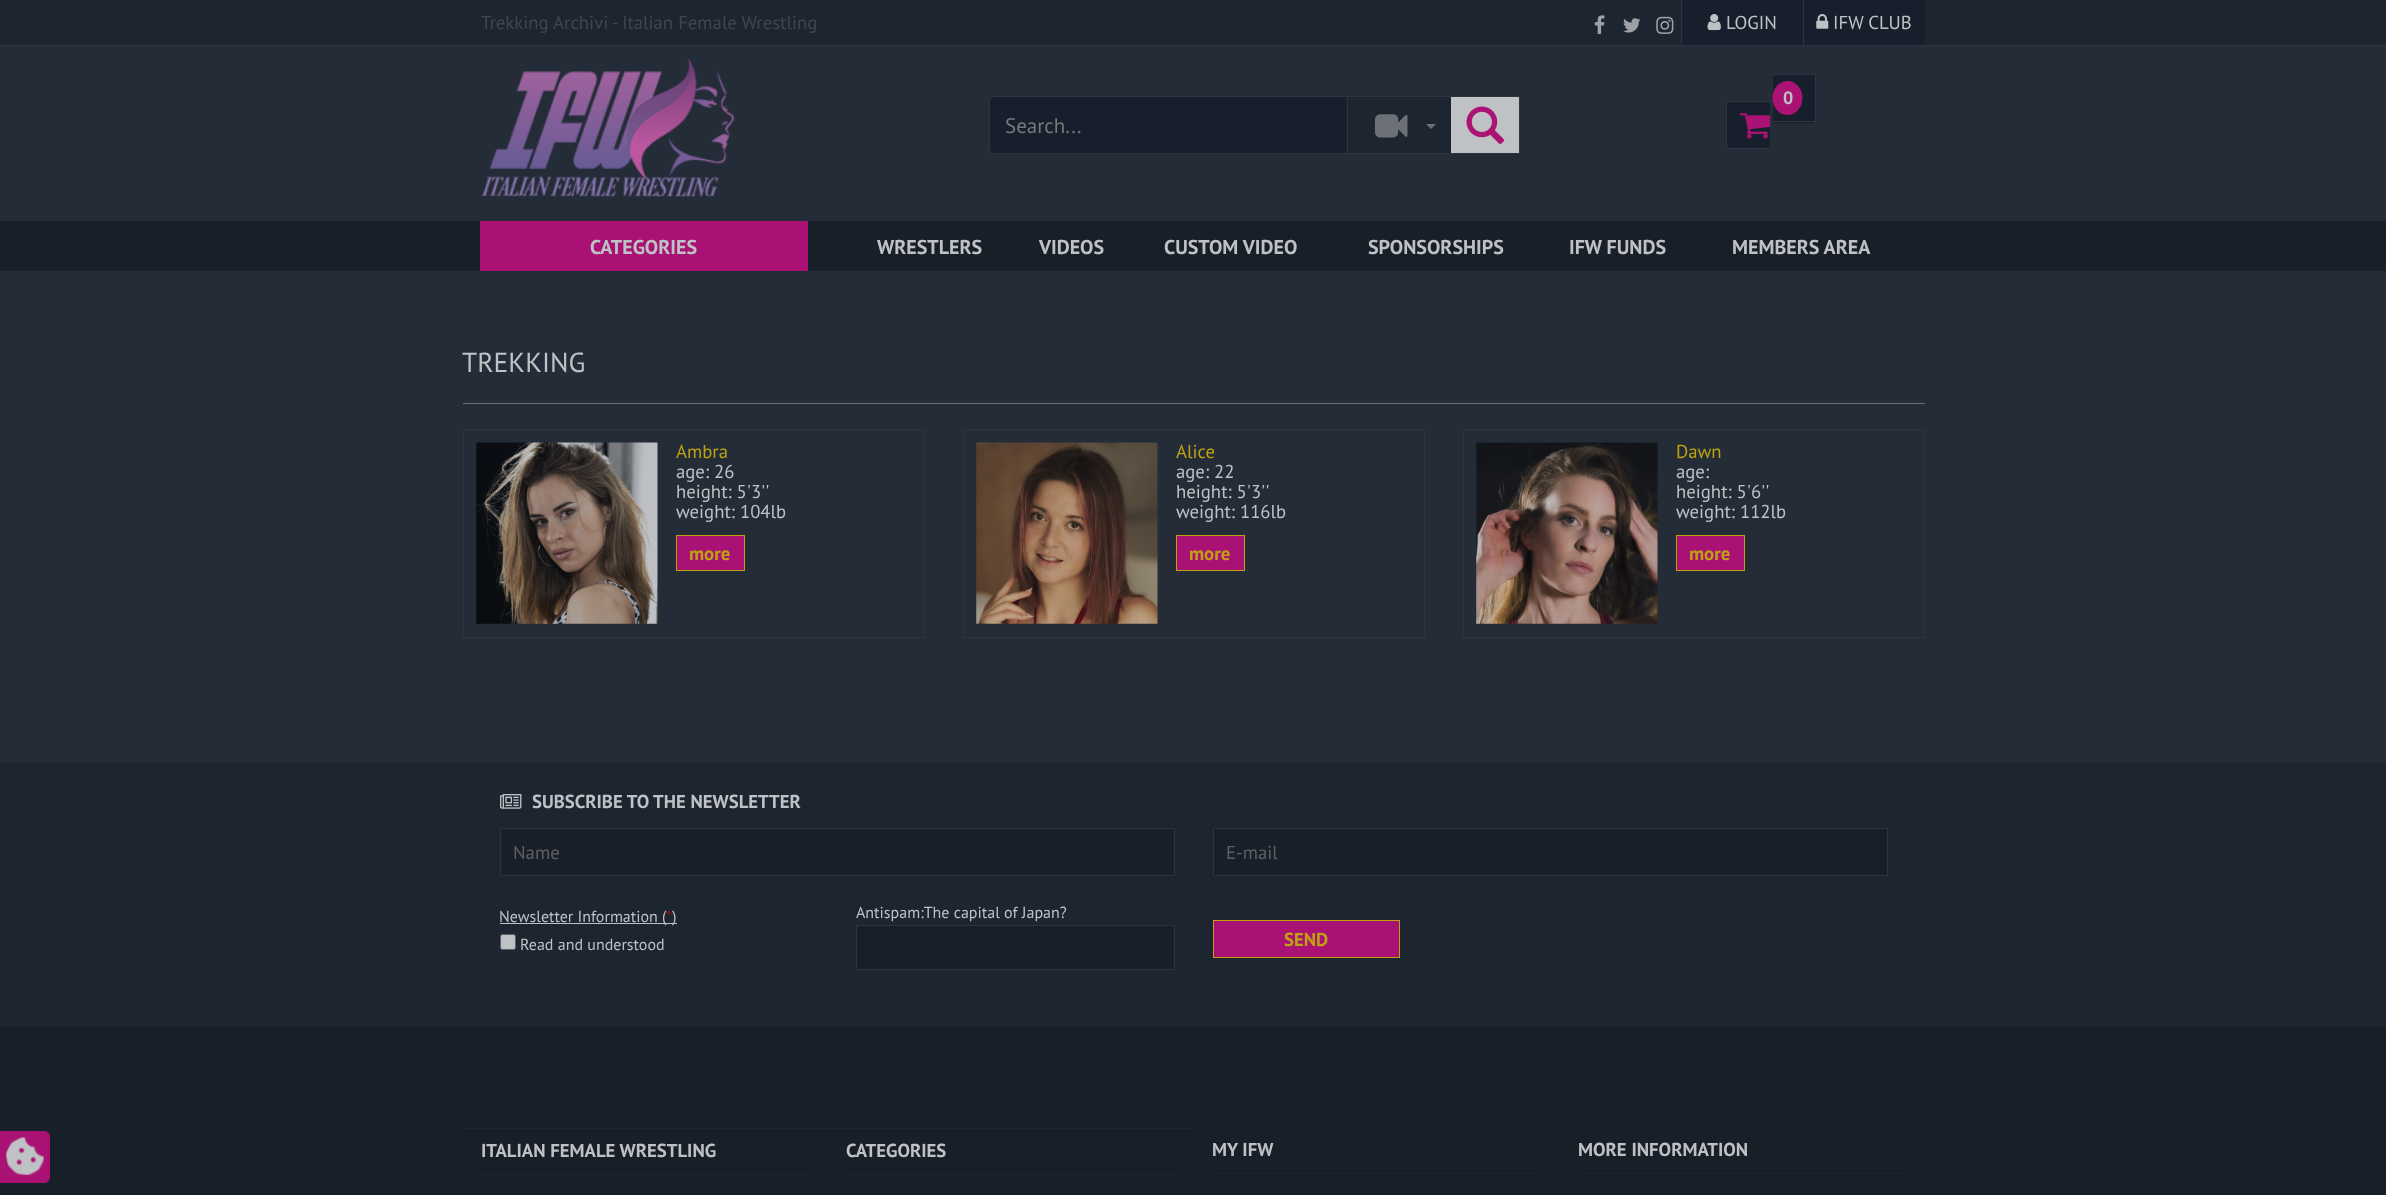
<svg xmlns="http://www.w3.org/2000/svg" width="2386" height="1195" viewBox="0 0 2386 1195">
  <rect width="100%" height="100%" fill="#242c38"/>
  <rect x="0" y="0" width="2386" height="45" fill="#1d2531"/>
  <rect x="0" y="45" width="2386" height="1" fill="#2d3541"/>
  <text x="481" y="29" font-family="PT Sans" font-size="18.75" fill="#404650">Trekking Archivi - Italian Female Wrestling</text>
  <image x="1594" y="15" width="11" height="19" href="img1.png"/>
  <image x="1623" y="18" width="18" height="15" href="img2.png"/>
  <image x="1656" y="16" width="18" height="18" href="img3.png"/>
  <rect x="1682" y="0" width="121" height="45" fill="#181f2c"/>
  <rect x="1681" y="0" width="1" height="45" fill="#2d3541"/>
  <image x="1707" y="14" width="14" height="17" href="img4.png"/>
  <text x="1726" y="29" font-family="PT Sans" font-size="18.75" fill="#bfc2c5">LOGIN</text>
  <rect x="1804" y="0" width="121" height="45" fill="#181f2c"/>
  <rect x="1803" y="0" width="1" height="45" fill="#2d3541"/>
  <image x="1816" y="14" width="13" height="15" href="img5.png"/>
  <text x="1833" y="29" font-family="PT Sans" font-size="18.75" fill="#bfc2c5">IFW CLUB</text>
  <image x="481" y="58" width="253" height="139" href="img6.png"/>
  <rect x="1727" y="102" width="43" height="46" fill="#181f2c"/>
  <rect x="1726" y="101" width="44" height="1" fill="#2d3541"/>
  <rect x="1726" y="148" width="44" height="1" fill="#2d3541"/>
  <rect x="1726" y="101" width="1" height="48" fill="#2d3541"/>
  <rect x="1773" y="75" width="42" height="48" fill="#181f2c"/>
  <rect x="1773" y="74" width="43" height="1" fill="#2d3541"/>
  <rect x="1815" y="74" width="1" height="49" fill="#2d3541"/>
  <rect x="1773" y="121" width="43" height="1" fill="#2d3541"/>
  <ellipse cx="1787.5" cy="98" rx="15" ry="17" fill="#aa1273"/>
  <text x="1783" y="104" font-family="PT Sans" font-size="18" font-weight="bold" fill="#bfc2c5">0</text>
  <image x="1740" y="113" width="31" height="26" href="img7.png"/>
  <rect x="1348" y="97" width="103" height="56" fill="#1d2531"/>
  <rect x="1348" y="96" width="172" height="1" fill="#2d3541"/>
  <rect x="1348" y="153" width="105" height="1" fill="#2d3541"/>
  <image x="1375" y="114" width="33" height="24" href="img8.png"/>
  <path d="M1426 124H1436L1431 129Z" fill="#6c7077"/>
  <path d="M994 96.5H1347.5V153.5H994C991.5 153.5 989.5 151.5 989.5 149V101C989.5 98.5 991.5 96.5 994 96.5Z" fill="#181f2c" stroke="#2d3541"/>
  <text x="1005" y="133" font-family="PT Sans" font-size="21" fill="#77797d">Search...</text>
  <rect x="1451" y="97" width="68" height="56" fill="#bfc2c5"/>
  <rect x="1519" y="96" width="1" height="58" fill="#2d3541"/>
  <rect x="1451" y="153" width="69" height="1" fill="#2d3541"/>
  <image x="1466" y="106" width="39" height="38" href="img9.png"/>
  <rect x="0" y="221" width="2386" height="50" fill="#181f29"/>
  <rect x="480" y="221" width="328" height="50" fill="#a91274"/>
  <text x="590" y="254" font-family="PT Sans" font-size="20" font-weight="bold" fill="#bfc2c5">CATEGORIES</text>
  <text x="877" y="254" font-family="PT Sans" font-size="20" font-weight="bold" fill="#bfc2c5">WRESTLERS</text>
  <text x="1039" y="254" font-family="PT Sans" font-size="20" font-weight="bold" fill="#bfc2c5">VIDEOS</text>
  <text x="1164" y="254" font-family="PT Sans" font-size="20" font-weight="bold" fill="#bfc2c5">CUSTOM VIDEO</text>
  <text x="1368" y="254" font-family="PT Sans" font-size="20" font-weight="bold" fill="#bfc2c5">SPONSORSHIPS</text>
  <text x="1569" y="254" font-family="PT Sans" font-size="20" font-weight="bold" fill="#bfc2c5">IFW FUNDS</text>
  <text x="1732" y="254" font-family="PT Sans" font-size="20" font-weight="bold" fill="#bfc2c5">MEMBERS AREA</text>
  <text x="462" y="372" font-family="PT Sans" font-size="27.5" fill="#bfc2c5">TREKKING</text>
  <rect x="463" y="403" width="1462" height="1" fill="#6c7077"/>
  <rect x="463.5" y="429.5" width="461" height="208" fill="none" stroke="#2d3541"/>
  <image x="476" y="442" width="182" height="182" href="img10.png"/>
  <text x="676" y="458" font-family="PT Sans" font-size="18.75" fill="#bea310">Ambra</text>
  <text x="676" y="478" font-family="PT Sans" font-size="18.75" fill="#bfc2c5">age: 26</text>
  <text x="676" y="498" font-family="PT Sans" font-size="18.75" fill="#bfc2c5">height: 5'3''</text>
  <text x="676" y="518" font-family="PT Sans" font-size="18.75" fill="#bfc2c5">weight: 104lb</text>
  <rect x="676.5" y="535.5" width="68" height="35" fill="#a91274" stroke="#bea310"/>
  <text x="689" y="560" font-family="PT Sans" font-size="18.75" font-weight="bold" fill="#bea310">more</text>
  <rect x="963.5" y="429.5" width="461" height="208" fill="none" stroke="#2d3541"/>
  <image x="976" y="442" width="182" height="182" href="img11.png"/>
  <text x="1176" y="458" font-family="PT Sans" font-size="18.75" fill="#bea310">Alice</text>
  <text x="1176" y="478" font-family="PT Sans" font-size="18.75" fill="#bfc2c5">age: 22</text>
  <text x="1176" y="498" font-family="PT Sans" font-size="18.75" fill="#bfc2c5">height: 5'3''</text>
  <text x="1176" y="518" font-family="PT Sans" font-size="18.75" fill="#bfc2c5">weight: 116lb</text>
  <rect x="1176.5" y="535.5" width="68" height="35" fill="#a91274" stroke="#bea310"/>
  <text x="1189" y="560" font-family="PT Sans" font-size="18.75" font-weight="bold" fill="#bea310">more</text>
  <rect x="1463.5" y="429.5" width="461" height="208" fill="none" stroke="#2d3541"/>
  <image x="1476" y="442" width="182" height="182" href="img12.png"/>
  <text x="1676" y="458" font-family="PT Sans" font-size="18.75" fill="#bea310">Dawn</text>
  <text x="1676" y="478" font-family="PT Sans" font-size="18.75" fill="#bfc2c5">age:</text>
  <text x="1676" y="498" font-family="PT Sans" font-size="18.75" fill="#bfc2c5">height: 5'6''</text>
  <text x="1676" y="518" font-family="PT Sans" font-size="18.75" fill="#bfc2c5">weight: 112lb</text>
  <rect x="1676.5" y="535.5" width="68" height="35" fill="#a91274" stroke="#bea310"/>
  <text x="1689" y="560" font-family="PT Sans" font-size="18.75" font-weight="bold" fill="#bea310">more</text>
  <rect x="0" y="763" width="2386" height="264" fill="#1d2531"/>
  <image x="500" y="794" width="22" height="15" href="img13.png"/>
  <text x="532" y="808" font-family="PT Sans" font-size="18.75" font-weight="bold" fill="#bfc2c5">SUBSCRIBE TO THE NEWSLETTER</text>
  <rect x="500.5" y="828.5" width="674" height="47" fill="#181f29" stroke="#2b3440"/>
  <text x="513" y="859" font-family="PT Sans" font-size="18.75" fill="#5e6063">Name</text>
  <rect x="1213.5" y="828.5" width="674" height="47" fill="#181f29" stroke="#2b3440"/>
  <text x="1226" y="859" font-family="PT Sans" font-size="18.75" fill="#5e6063">E-mail</text>
  <rect x="500" y="923" width="166" height="1" fill="#bfc2c5"/>
  <text x="499" y="922" font-family="PT Sans" font-size="16" fill="#bfc2c5">Newsletter Information (</text>
  <rect x="666" y="923" width="11" height="1" fill="#bfc2c5"/>
  <text x="666" y="922" font-family="PT Sans" font-size="16" fill="#9b0d10">*</text>
  <text x="672" y="922" font-family="PT Sans" font-size="16" fill="#bfc2c5">)</text>
  <rect x="500.5" y="934.5" width="15" height="15" rx="2" fill="#bfc2c5" stroke="#5e6164"/>
  <text x="520" y="950" font-family="PT Sans" font-size="16" fill="#bfc2c5">Read and understood</text>
  <text x="856" y="918" font-family="PT Sans" font-size="16" fill="#bfc2c5">Antispam:The capital of Japan?</text>
  <rect x="856.5" y="925.5" width="318" height="44" fill="#181f29" stroke="#2b3440"/>
  <rect x="1213.5" y="920.5" width="186" height="37" fill="#a91274" stroke="#bea310"/>
  <text x="1284" y="946" font-family="PT Sans" font-size="18.75" font-weight="bold" fill="#bea310">SEND</text>
  <rect x="0" y="1027" width="2386" height="168" fill="#181f29"/>
  <path d="M0 1131H44C47.5 1131 50 1133.5 50 1137V1177C50 1180.5 47.5 1183 44 1183H0Z" fill="#a91274"/>
  <image x="6" y="1137" width="38" height="38" href="img14.png"/>
  <rect x="463" y="1128" width="731" height="1" fill="#1d2531"/>
  <text x="481" y="1157" font-family="PT Sans" font-size="18.75" font-weight="bold" fill="#bfc2c5">ITALIAN FEMALE WRESTLING</text>
  <rect x="481" y="1174" width="328" height="1" fill="#1d2531"/>
  <text x="846" y="1157" font-family="PT Sans" font-size="18.75" font-weight="bold" fill="#bfc2c5">CATEGORIES</text>
  <rect x="846" y="1174" width="329" height="1" fill="#1d2531"/>
  <text x="1212" y="1156" font-family="PT Sans" font-size="18.75" font-weight="bold" fill="#bfc2c5">MY IFW</text>
  <rect x="1213" y="1173" width="327" height="1" fill="#1d2531"/>
  <text x="1578" y="1156" font-family="PT Sans" font-size="18.75" font-weight="bold" fill="#bfc2c5">MORE INFORMATION</text>
  <rect x="1578" y="1173" width="328" height="1" fill="#1d2531"/>
</svg>
